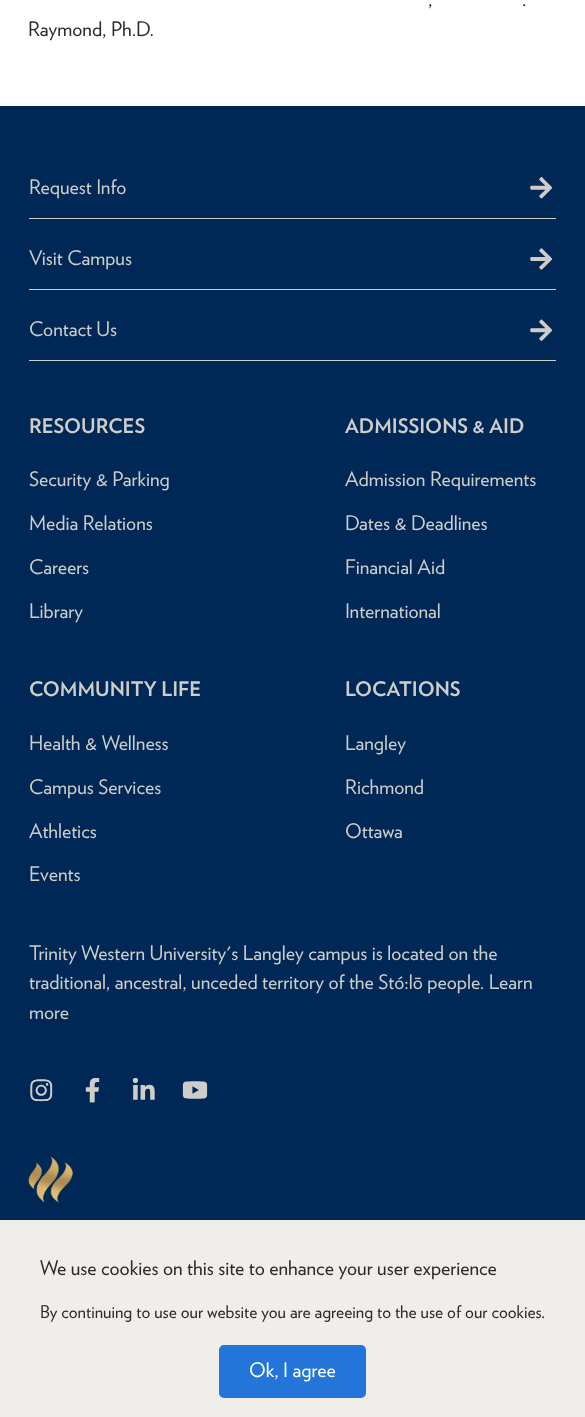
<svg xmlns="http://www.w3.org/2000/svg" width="585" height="1417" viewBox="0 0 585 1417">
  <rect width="100%" height="100%" fill="#ffffff"/>
  <text x="428" y="6" font-family="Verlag" font-size="20" fill="#2d2a2b">,</text>
  <text x="522" y="6" font-family="Verlag" font-size="20" fill="#2d2a2b">.</text>
  <text x="28" y="36" font-family="Verlag" font-size="20" fill="#2d2a2b">Raymond, Ph.D.</text>
  <rect x="0" y="106" width="585" height="1114" fill="#002856"/>
  <rect x="29" y="218" width="527" height="1" fill="#cfcdc9"/>
  <text x="29" y="194" font-family="Verlag" font-size="20" fill="#cfcdc9">Request Info</text>
  <image x="530" y="177" width="23" height="22" href="img1.png"/>
  <rect x="29" y="289" width="527" height="1" fill="#cfcdc9"/>
  <text x="29" y="265" font-family="Verlag" font-size="20" fill="#cfcdc9">Visit Campus</text>
  <image x="530" y="248" width="23" height="22" href="img2.png"/>
  <rect x="29" y="360" width="527" height="1" fill="#cfcdc9"/>
  <text x="29" y="336" font-family="Verlag" font-size="20" fill="#cfcdc9">Contact Us</text>
  <image x="530" y="319" width="23" height="22" href="img3.png"/>
  <text x="29" y="433" font-family="Verlag" font-size="20" font-weight="bold" fill="#cfcdc9">RESOURCES</text>
  <text x="29" y="486" font-family="Verlag" font-size="20" fill="#cfcdc9">Security &amp; Parking</text>
  <text x="29" y="530" font-family="Verlag" font-size="20" fill="#cfcdc9">Media Relations</text>
  <text x="29" y="574" font-family="Verlag" font-size="20" fill="#cfcdc9">Careers</text>
  <text x="29" y="618" font-family="Verlag" font-size="20" fill="#cfcdc9">Library</text>
  <text x="345" y="433" font-family="Verlag" font-size="20" font-weight="bold" fill="#cfcdc9">ADMISSIONS &amp; AID</text>
  <text x="345" y="486" font-family="Verlag" font-size="20" fill="#cfcdc9">Admission Requirements</text>
  <text x="345" y="530" font-family="Verlag" font-size="20" fill="#cfcdc9">Dates &amp; Deadlines</text>
  <text x="345" y="574" font-family="Verlag" font-size="20" fill="#cfcdc9">Financial Aid</text>
  <text x="345" y="618" font-family="Verlag" font-size="20" fill="#cfcdc9">International</text>
  <text x="29" y="696" font-family="Verlag" font-size="20" font-weight="bold" fill="#cfcdc9">COMMUNITY LIFE</text>
  <text x="29" y="750" font-family="Verlag" font-size="20" fill="#cfcdc9">Health &amp; Wellness</text>
  <text x="29" y="794" font-family="Verlag" font-size="20" fill="#cfcdc9">Campus Services</text>
  <text x="29" y="838" font-family="Verlag" font-size="20" fill="#cfcdc9">Athletics</text>
  <text x="29" y="881" font-family="Verlag" font-size="20" fill="#cfcdc9">Events</text>
  <text x="345" y="696" font-family="Verlag" font-size="20" font-weight="bold" fill="#cfcdc9">LOCATIONS</text>
  <text x="345" y="750" font-family="Verlag" font-size="20" fill="#cfcdc9">Langley</text>
  <text x="345" y="794" font-family="Verlag" font-size="20" fill="#cfcdc9">Richmond</text>
  <text x="345" y="838" font-family="Verlag" font-size="20" fill="#cfcdc9">Ottawa</text>
  <text x="29" y="960" font-family="Verlag" font-size="20" fill="#cfcdc9">Trinity Western University's Langley campus is located on the</text>
  <text x="29" y="989" font-family="Verlag" font-size="20" fill="#cfcdc9">traditional, ancestral, unceded territory of the Stó:lō people. Learn</text>
  <text x="29" y="1019" font-family="Verlag" font-size="20" fill="#cfcdc9">more</text>
  <image x="30" y="1079" width="23" height="23" href="img4.png"/>
  <image x="85" y="1078" width="15" height="25" href="img5.png"/>
  <image x="132" y="1078" width="23" height="22" href="img6.png"/>
  <image x="182" y="1081" width="26" height="18" href="img7.png"/>
  <image x="28" y="1156" width="45" height="47" href="img8.png"/>
  <rect x="0" y="1220" width="585" height="197" fill="#efeeeb"/>
  <text x="40" y="1275" font-family="Verlag" font-size="20" fill="#2d2a2b">We use cookies on this site to enhance your user experience</text>
  <text x="40" y="1318" font-family="Verlag" font-size="17.5" fill="#2d2a2b">By continuing to use our website you are agreeing to the use of our cookies.</text>
  <rect x="220.5" y="1346.5" width="144" height="50" rx="3.5" fill="#2375da" stroke="#2375da" stroke-width="3"/>
  <text x="249" y="1377" font-family="Verlag" font-size="20" fill="#ffffff">Ok, I agree</text>
</svg>
